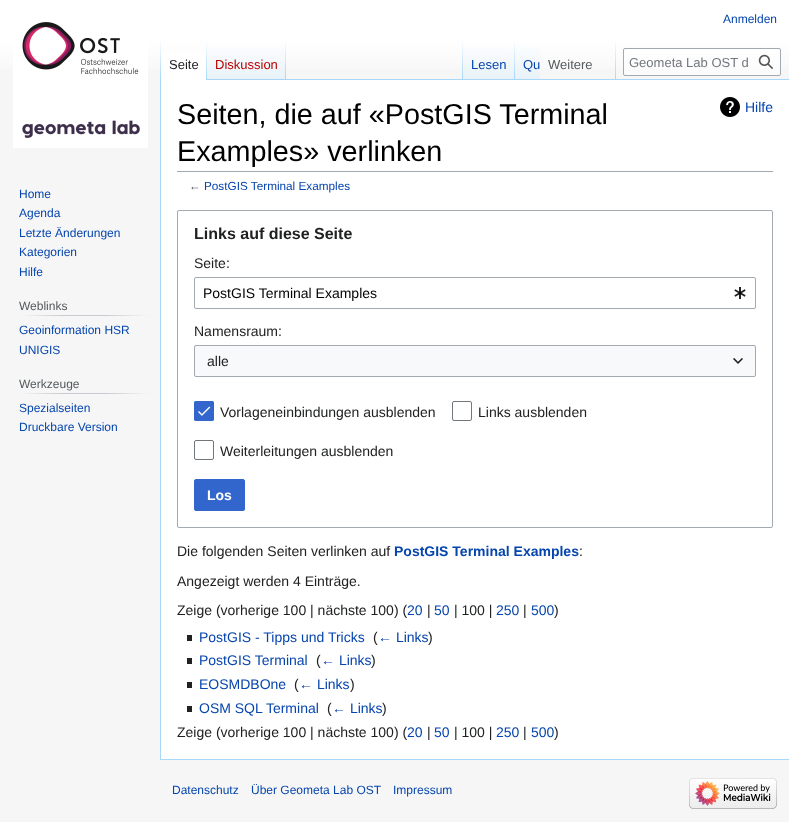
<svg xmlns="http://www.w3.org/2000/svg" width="789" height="822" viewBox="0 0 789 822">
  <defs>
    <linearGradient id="g1" gradientUnits="userSpaceOnUse" x1="395" y1="0" x2="395" y2="80"><stop offset="0.5" stop-color="#ffffff"/><stop offset="1" stop-color="#f6f6f6"/></linearGradient>
    <linearGradient id="g2" gradientUnits="userSpaceOnUse" x1="161" y1="40" x2="161" y2="80"><stop offset="0" stop-color="#a7d7f9" stop-opacity="0"/><stop offset="1" stop-color="#a7d7f9"/></linearGradient>
    <linearGradient id="g3" gradientUnits="userSpaceOnUse" x1="207" y1="40" x2="207" y2="80"><stop offset="0" stop-color="#ffffff"/><stop offset="1" stop-color="#a7d7f9"/></linearGradient>
    <linearGradient id="g4" gradientUnits="userSpaceOnUse" x1="247" y1="80" x2="247" y2="40"><stop offset="0" stop-color="#77c1f6"/><stop offset="0.03" stop-color="#e8f2f8"/><stop offset="1" stop-color="#ffffff"/></linearGradient>
    <linearGradient id="g5" gradientUnits="userSpaceOnUse" x1="286" y1="40" x2="286" y2="80"><stop offset="0" stop-color="#a7d7f9" stop-opacity="0"/><stop offset="1" stop-color="#a7d7f9"/></linearGradient>
    <linearGradient id="g6" gradientUnits="userSpaceOnUse" x1="463" y1="40" x2="463" y2="80"><stop offset="0" stop-color="#a7d7f9" stop-opacity="0"/><stop offset="1" stop-color="#a7d7f9"/></linearGradient>
    <linearGradient id="g7" gradientUnits="userSpaceOnUse" x1="489" y1="80" x2="489" y2="40"><stop offset="0" stop-color="#77c1f6"/><stop offset="0.03" stop-color="#e8f2f8"/><stop offset="1" stop-color="#ffffff"/></linearGradient>
    <linearGradient id="g8" gradientUnits="userSpaceOnUse" x1="515" y1="40" x2="515" y2="80"><stop offset="0" stop-color="#a7d7f9" stop-opacity="0"/><stop offset="1" stop-color="#a7d7f9"/></linearGradient>
    <linearGradient id="g9" gradientUnits="userSpaceOnUse" x1="528" y1="80" x2="528" y2="40"><stop offset="0" stop-color="#77c1f6"/><stop offset="0.03" stop-color="#e8f2f8"/><stop offset="1" stop-color="#ffffff"/></linearGradient>
    <linearGradient id="g10" gradientUnits="userSpaceOnUse" x1="616" y1="40" x2="616" y2="80"><stop offset="0" stop-color="#a7d7f9" stop-opacity="0"/><stop offset="1" stop-color="#a7d7f9"/></linearGradient>
    <linearGradient id="g11" gradientUnits="userSpaceOnUse" x1="19" y1="316" x2="150" y2="316"><stop offset="0" stop-color="#f6f6f6"/><stop offset="0.33" stop-color="#c8ccd1"/><stop offset="0.66" stop-color="#c8ccd1"/><stop offset="1" stop-color="#f6f6f6"/></linearGradient>
    <linearGradient id="g12" gradientUnits="userSpaceOnUse" x1="19" y1="394" x2="150" y2="394"><stop offset="0" stop-color="#f6f6f6"/><stop offset="0.33" stop-color="#c8ccd1"/><stop offset="0.66" stop-color="#c8ccd1"/><stop offset="1" stop-color="#f6f6f6"/></linearGradient>
  </defs>
  <rect width="100%" height="100%" fill="#f6f6f6"/>
  <rect x="0" y="0" width="789" height="69" fill="url(#g1)"/>
  <text x="723" y="23" font-family="Liberation Sans" font-size="12" fill="#0645ad">Anmelden</text>
  <rect x="160" y="759" width="629" height="1" fill="#a7d7f9"/>
  <rect x="160" y="79" width="1" height="681" fill="#a7d7f9"/>
  <rect x="160" y="40" width="1" height="40" fill="url(#g2)"/>
  <rect x="161" y="51" width="45" height="29" fill="#ffffff"/>
  <rect x="206" y="40" width="1" height="40" fill="url(#g3)"/>
  <text x="169" y="69" font-family="Liberation Sans" font-size="13" fill="#202122">Seite</text>
  <rect x="207" y="46" width="79" height="34" fill="url(#g4)"/>
  <rect x="285" y="40" width="1" height="40" fill="url(#g5)"/>
  <text x="215" y="69" font-family="Liberation Sans" font-size="13" fill="#ba0000">Diskussion</text>
  <rect x="286" y="79" width="503" height="1" fill="#a7d7f9"/>
  <rect x="462" y="40" width="1" height="40" fill="url(#g6)"/>
  <rect x="463" y="46" width="52" height="33" fill="url(#g7)"/>
  <rect x="514" y="40" width="1" height="40" fill="url(#g8)"/>
  <text x="471" y="69" font-family="Liberation Sans" font-size="13" fill="#0645ad">Lesen</text>
  <rect x="515" y="46" width="25" height="33" fill="url(#g9)"/>
  <text x="523" y="69" font-family="Liberation Sans" font-size="13" fill="#0645ad">Qu</text>
  <rect x="615" y="40" width="1" height="40" fill="url(#g10)"/>
  <text x="548" y="69" font-family="Liberation Sans" font-size="13" fill="#54595d">Weitere</text>
  <rect x="623.5" y="48.5" width="157" height="27" rx="1.5" fill="#ffffff" fill-opacity="0.5" stroke="#a2a9b1"/>
  <text x="629" y="67" font-family="Liberation Sans" font-size="13" fill="#72777d">Geometa Lab OST d</text>
  <image x="758" y="54" width="15" height="15" href="img1.png"/>
  <image x="13" y="22" width="135" height="126" href="img2.png"/>
  <text x="19" y="198" font-family="Liberation Sans" font-size="12" fill="#0645ad">Home</text>
  <text x="19" y="217" font-family="Liberation Sans" font-size="12" fill="#0645ad">Agenda</text>
  <text x="19" y="237" font-family="Liberation Sans" font-size="12" fill="#0645ad">Letzte Änderungen</text>
  <text x="19" y="256" font-family="Liberation Sans" font-size="12" fill="#0645ad">Kategorien</text>
  <text x="19" y="276" font-family="Liberation Sans" font-size="12" fill="#0645ad">Hilfe</text>
  <rect x="19" y="315" width="131" height="1" fill="url(#g11)"/>
  <text x="19" y="310" font-family="Liberation Sans" font-size="12" fill="#54595d">Weblinks</text>
  <text x="19" y="334" font-family="Liberation Sans" font-size="12" fill="#0645ad">Geoinformation HSR</text>
  <text x="19" y="354" font-family="Liberation Sans" font-size="12" fill="#0645ad">UNIGIS</text>
  <rect x="19" y="393" width="131" height="1" fill="url(#g12)"/>
  <text x="19" y="388" font-family="Liberation Sans" font-size="12" fill="#54595d">Werkzeuge</text>
  <text x="19" y="412" font-family="Liberation Sans" font-size="12" fill="#0645ad">Spezialseiten</text>
  <text x="19" y="431" font-family="Liberation Sans" font-size="12" fill="#0645ad">Druckbare Version</text>
  <rect x="161" y="80" width="628" height="679" fill="#ffffff"/>
  <rect x="177" y="171" width="596" height="1" fill="#a2a9b1"/>
  <text x="177" y="124" font-family="Liberation Sans" font-size="28.75" fill="#000000">Seiten, die auf «PostGIS Terminal</text>
  <text x="177" y="161" font-family="Liberation Sans" font-size="28.75" fill="#000000">Examples» verlinken</text>
  <image x="720" y="97" width="20" height="20" href="img3.png"/>
  <text x="745" y="112" font-family="Liberation Sans" font-size="14" fill="#0645ad">Hilfe</text>
  <text x="189" y="190" font-family="Liberation Sans" font-size="11.75" fill="#54595d">←</text>
  <text x="204" y="190" font-family="Liberation Sans" font-size="11.75" fill="#0645ad">PostGIS Terminal Examples</text>
  <rect x="177.5" y="210.5" width="595" height="317" rx="1.5" fill="none" stroke="#a2a9b1"/>
  <text x="194" y="239" font-family="Liberation Sans" font-size="16" font-weight="bold" fill="#202122">Links auf diese Seite</text>
  <text x="194" y="268" font-family="Liberation Sans" font-size="14" fill="#202122">Seite:</text>
  <rect x="194.5" y="277.5" width="561" height="31" rx="1.5" fill="none" stroke="#a2a9b1"/>
  <text x="203" y="298" font-family="Liberation Sans" font-size="14" fill="#000000">PostGIS Terminal Examples</text>
  <image x="734" y="287" width="12" height="12" href="img4.png"/>
  <text x="194" y="336" font-family="Liberation Sans" font-size="14" fill="#202122">Namensraum:</text>
  <rect x="194" y="345" width="562" height="32" fill="#f8f9fa"/>
  <rect x="194.5" y="345.5" width="561" height="31" rx="1.5" fill="none" stroke="#a2a9b1"/>
  <text x="207" y="366" font-family="Liberation Sans" font-size="14" fill="#202122">alle</text>
  <image x="733" y="358" width="10" height="6" href="img5.png"/>
  <rect x="194" y="401" width="20" height="20" rx="2" fill="#3366cc"/>
  <image x="198" y="406" width="13" height="10" href="img6.png"/>
  <rect x="194.5" y="401.5" width="19" height="19" rx="1.5" fill="none" stroke="#3366cc"/>
  <text x="220" y="417" font-family="Liberation Sans" font-size="14" fill="#202122">Vorlageneinbindungen ausblenden</text>
  <rect x="452.5" y="401.5" width="19" height="19" rx="1.5" fill="none" stroke="#72777d"/>
  <text x="478" y="417" font-family="Liberation Sans" font-size="14" fill="#202122">Links ausblenden</text>
  <rect x="194.5" y="440.5" width="19" height="19" rx="1.5" fill="none" stroke="#72777d"/>
  <text x="220" y="456" font-family="Liberation Sans" font-size="14" fill="#202122">Weiterleitungen ausblenden</text>
  <rect x="194.5" y="479.5" width="50" height="31" rx="1.5" fill="#3366cc" stroke="#3366cc"/>
  <text x="207" y="500" font-family="Liberation Sans" font-size="14" font-weight="bold" fill="#ffffff">Los</text>
  <text x="177" y="556" font-family="Liberation Sans" font-size="14" fill="#202122">Die folgenden Seiten verlinken auf</text>
  <text x="394" y="556" font-family="Liberation Sans" font-size="14" font-weight="bold" fill="#0645ad">PostGIS Terminal Examples</text>
  <text x="579" y="556" font-family="Liberation Sans" font-size="14" fill="#202122">:</text>
  <text x="177" y="586" font-family="Liberation Sans" font-size="14" fill="#202122">Angezeigt werden 4 Einträge.</text>
  <text x="177" y="615" font-family="Liberation Sans" font-size="14" fill="#202122">Zeige (vorherige 100 | nächste 100) (</text>
  <text x="407" y="615" font-family="Liberation Sans" font-size="14" fill="#0645ad">20</text>
  <text x="427" y="615" font-family="Liberation Sans" font-size="14" fill="#202122">|</text>
  <text x="434" y="615" font-family="Liberation Sans" font-size="14" fill="#0645ad">50</text>
  <text x="454" y="615" font-family="Liberation Sans" font-size="14" fill="#202122">| 100 |</text>
  <text x="496" y="615" font-family="Liberation Sans" font-size="14" fill="#0645ad">250</text>
  <text x="523" y="615" font-family="Liberation Sans" font-size="14" fill="#202122">|</text>
  <text x="531" y="615" font-family="Liberation Sans" font-size="14" fill="#0645ad">500</text>
  <text x="554" y="615" font-family="Liberation Sans" font-size="14" fill="#202122">)</text>
  <rect x="187" y="635" width="5" height="6" fill="#202122"/>
  <text x="199" y="642" font-family="Liberation Sans" font-size="14" fill="#0645ad">PostGIS - Tipps und Tricks</text>
  <text x="373" y="642" font-family="Liberation Sans" font-size="14" fill="#202122">(</text>
  <text x="378" y="642" font-family="Liberation Sans" font-size="14" fill="#0645ad">← Links</text>
  <text x="428" y="642" font-family="Liberation Sans" font-size="14" fill="#202122">)</text>
  <rect x="187" y="658" width="5" height="6" fill="#202122"/>
  <text x="199" y="665" font-family="Liberation Sans" font-size="14" fill="#0645ad">PostGIS Terminal</text>
  <text x="316" y="665" font-family="Liberation Sans" font-size="14" fill="#202122">(</text>
  <text x="321" y="665" font-family="Liberation Sans" font-size="14" fill="#0645ad">← Links</text>
  <text x="371" y="665" font-family="Liberation Sans" font-size="14" fill="#202122">)</text>
  <rect x="187" y="682" width="5" height="6" fill="#202122"/>
  <text x="199" y="689" font-family="Liberation Sans" font-size="14" fill="#0645ad">EOSMDBOne</text>
  <text x="294" y="689" font-family="Liberation Sans" font-size="14" fill="#202122">(</text>
  <text x="299" y="689" font-family="Liberation Sans" font-size="14" fill="#0645ad">← Links</text>
  <text x="350" y="689" font-family="Liberation Sans" font-size="14" fill="#202122">)</text>
  <rect x="187" y="706" width="5" height="6" fill="#202122"/>
  <text x="199" y="713" font-family="Liberation Sans" font-size="14" fill="#0645ad">OSM SQL Terminal</text>
  <text x="327" y="713" font-family="Liberation Sans" font-size="14" fill="#202122">(</text>
  <text x="332" y="713" font-family="Liberation Sans" font-size="14" fill="#0645ad">← Links</text>
  <text x="382" y="713" font-family="Liberation Sans" font-size="14" fill="#202122">)</text>
  <text x="177" y="737" font-family="Liberation Sans" font-size="14" fill="#202122">Zeige (vorherige 100 | nächste 100) (</text>
  <text x="407" y="737" font-family="Liberation Sans" font-size="14" fill="#0645ad">20</text>
  <text x="427" y="737" font-family="Liberation Sans" font-size="14" fill="#202122">|</text>
  <text x="434" y="737" font-family="Liberation Sans" font-size="14" fill="#0645ad">50</text>
  <text x="454" y="737" font-family="Liberation Sans" font-size="14" fill="#202122">| 100 |</text>
  <text x="496" y="737" font-family="Liberation Sans" font-size="14" fill="#0645ad">250</text>
  <text x="523" y="737" font-family="Liberation Sans" font-size="14" fill="#202122">|</text>
  <text x="531" y="737" font-family="Liberation Sans" font-size="14" fill="#0645ad">500</text>
  <text x="554" y="737" font-family="Liberation Sans" font-size="14" fill="#202122">)</text>
  <text x="172" y="794" font-family="Liberation Sans" font-size="12" fill="#0645ad">Datenschutz</text>
  <text x="251" y="794" font-family="Liberation Sans" font-size="12" fill="#0645ad">Über Geometa Lab OST</text>
  <text x="393" y="794" font-family="Liberation Sans" font-size="12" fill="#0645ad">Impressum</text>
  <image x="689" y="778" width="88" height="31" href="img7.png"/>
</svg>
